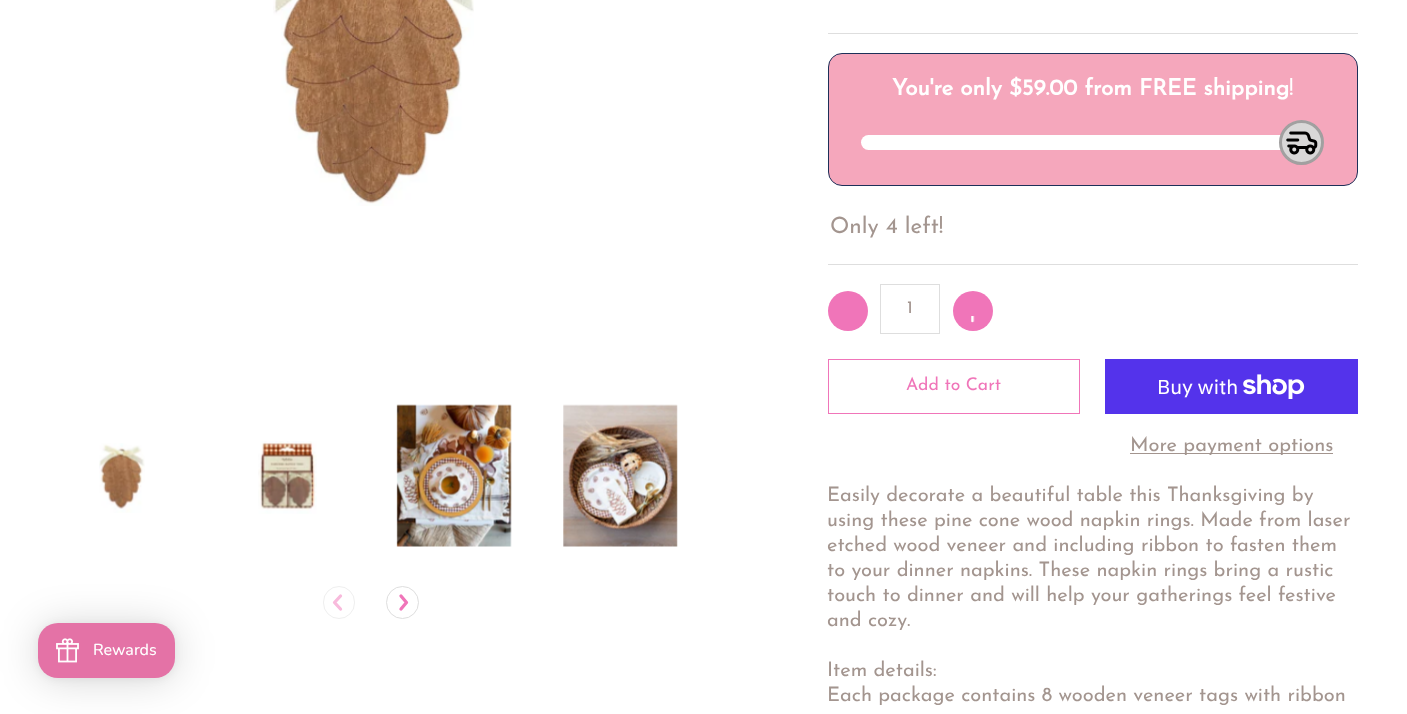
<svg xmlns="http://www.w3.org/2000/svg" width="1407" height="714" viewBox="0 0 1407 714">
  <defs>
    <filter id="blur1" x="-50%" y="-200%" width="200%" height="500%"><feGaussianBlur stdDeviation="20"/></filter>
    <filter id="blur2" x="-50%" y="-200%" width="200%" height="500%"><feGaussianBlur stdDeviation="4"/></filter>
  </defs>
  <rect width="100%" height="100%" fill="#ffffff"/>
  <rect x="38" y="625" width="137" height="55" rx="20" fill="#000000" fill-opacity="0.16" filter="url(#blur1)"/>
  <rect x="38" y="624" width="137" height="55" rx="20" fill="#000000" fill-opacity="0.06" filter="url(#blur2)"/>
  <rect x="38" y="623" width="137" height="55" rx="20" fill="#e472a6"/>
  <image x="56" y="638" width="23" height="25" href="img1.png"/>
  <text x="93" y="655" font-family="Nunito" font-size="16" font-weight="500" fill="#ffffff">Rewards</text>
  <image x="273" y="0" width="201" height="206" href="img2.png"/>
  <image x="99" y="443" width="46" height="70" href="img3.png"/>
  <image x="258" y="441" width="59" height="73" href="img4.png"/>
  <image x="396" y="404" width="116" height="143" href="img5.png"/>
  <image x="563" y="404" width="115" height="143" href="img6.png"/>
  <rect x="323.5" y="586.5" width="31" height="32" rx="15.5" fill="none" stroke="#efefef"/>
  <path d="M340.5 596L334.5 602.5L340.5 609" fill="none" stroke="#f8badc" stroke-width="3.3" stroke-linecap="round" stroke-linejoin="round"/>
  <circle cx="402.5" cy="602.5" r="16" fill="none" stroke="#dedede"/>
  <path d="M401 609L406.5 602.5L401 596" fill="none" stroke="#f075b9" stroke-width="3.3" stroke-linecap="round" stroke-linejoin="round"/>
  <rect x="828" y="33" width="530" height="1" fill="#dedede"/>
  <rect x="828.5" y="53.5" width="529" height="132" rx="13.5" fill="#f5a7bc" stroke="#1d3059"/>
  <text x="892" y="95" font-family="Josefin Sans" font-size="22.5" font-weight="bold" fill="#ffffff">You're only $59.00 from FREE shipping</text>
  <text x="1289" y="95" font-family="Josefin Sans" font-size="22.5" font-weight="100" fill="#ffffff">!</text>
  <rect x="861" y="135" width="440" height="15" rx="7.5" fill="#ffffff"/>
  <circle cx="1301.5" cy="142.5" r="22.5" fill="#d9d8d8"/>
  <circle cx="1301.5" cy="142.5" r="21" fill="none" stroke="#000000" stroke-opacity="0.26" stroke-width="3"/>
  <image x="1286" y="131" width="32" height="24" href="img7.png"/>
  <rect x="828" y="264" width="530" height="1" fill="#dedede"/>
  <text x="830" y="233" font-family="Josefin Sans" font-size="22.5" font-weight="100" fill="#a3958f">Only 4 left!</text>
  <circle cx="848" cy="311" r="20" fill="#f075b9"/>
  <rect x="880.5" y="284.5" width="59" height="49" fill="none" stroke="#dedede"/>
  <text x="907" y="313" font-family="Josefin Sans" font-size="17.5" font-weight="100" fill="#a3958f">1</text>
  <circle cx="973" cy="311" r="20" fill="#f075b9"/>
  <image x="971" y="316" width="4" height="7" href="img8.png"/>
  <rect x="828.5" y="359.5" width="251" height="54" fill="none" stroke="#f075b9"/>
  <text x="906" y="390" font-family="Josefin Sans" font-size="17.5" font-weight="100" fill="#f075b9">Add to Cart</text>
  <rect x="1105" y="359" width="253" height="55" fill="#5433eb"/>
  <text x="1157" y="394" font-family="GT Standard" font-size="20" fill="#ffffff">Buy with</text>
  <image x="1243" y="374" width="62" height="25" href="img9.png"/>
  <rect x="1130" y="453" width="203" height="1" fill="#a3958f"/>
  <text x="1130" y="451" font-family="Josefin Sans" font-size="20" font-weight="100" fill="#a3958f">More payment options</text>
  <text x="827" y="501" font-family="Josefin Sans" font-size="20" font-weight="100" fill="#a3958f">Easily decorate a beautiful table this Thanksgiving by</text>
  <text x="827" y="526" font-family="Josefin Sans" font-size="20" font-weight="100" fill="#a3958f">using these pine cone wood napkin rings. Made from laser</text>
  <text x="827" y="551" font-family="Josefin Sans" font-size="20" font-weight="100" fill="#a3958f">etched wood veneer and including ribbon to fasten them</text>
  <text x="827" y="576" font-family="Josefin Sans" font-size="20" font-weight="100" fill="#a3958f">to your dinner napkins. These napkin rings bring a rustic</text>
  <text x="827" y="601" font-family="Josefin Sans" font-size="20" font-weight="100" fill="#a3958f">touch to dinner and will help your gatherings feel festive</text>
  <text x="827" y="626" font-family="Josefin Sans" font-size="20" font-weight="100" fill="#a3958f">and cozy.</text>
  <text x="827" y="676" font-family="Josefin Sans" font-size="20" font-weight="100" fill="#a3958f">Item details:</text>
  <text x="827" y="701" font-family="Josefin Sans" font-size="20" font-weight="100" fill="#a3958f">Each package contains 8 wooden veneer tags with ribbon</text>
</svg>
